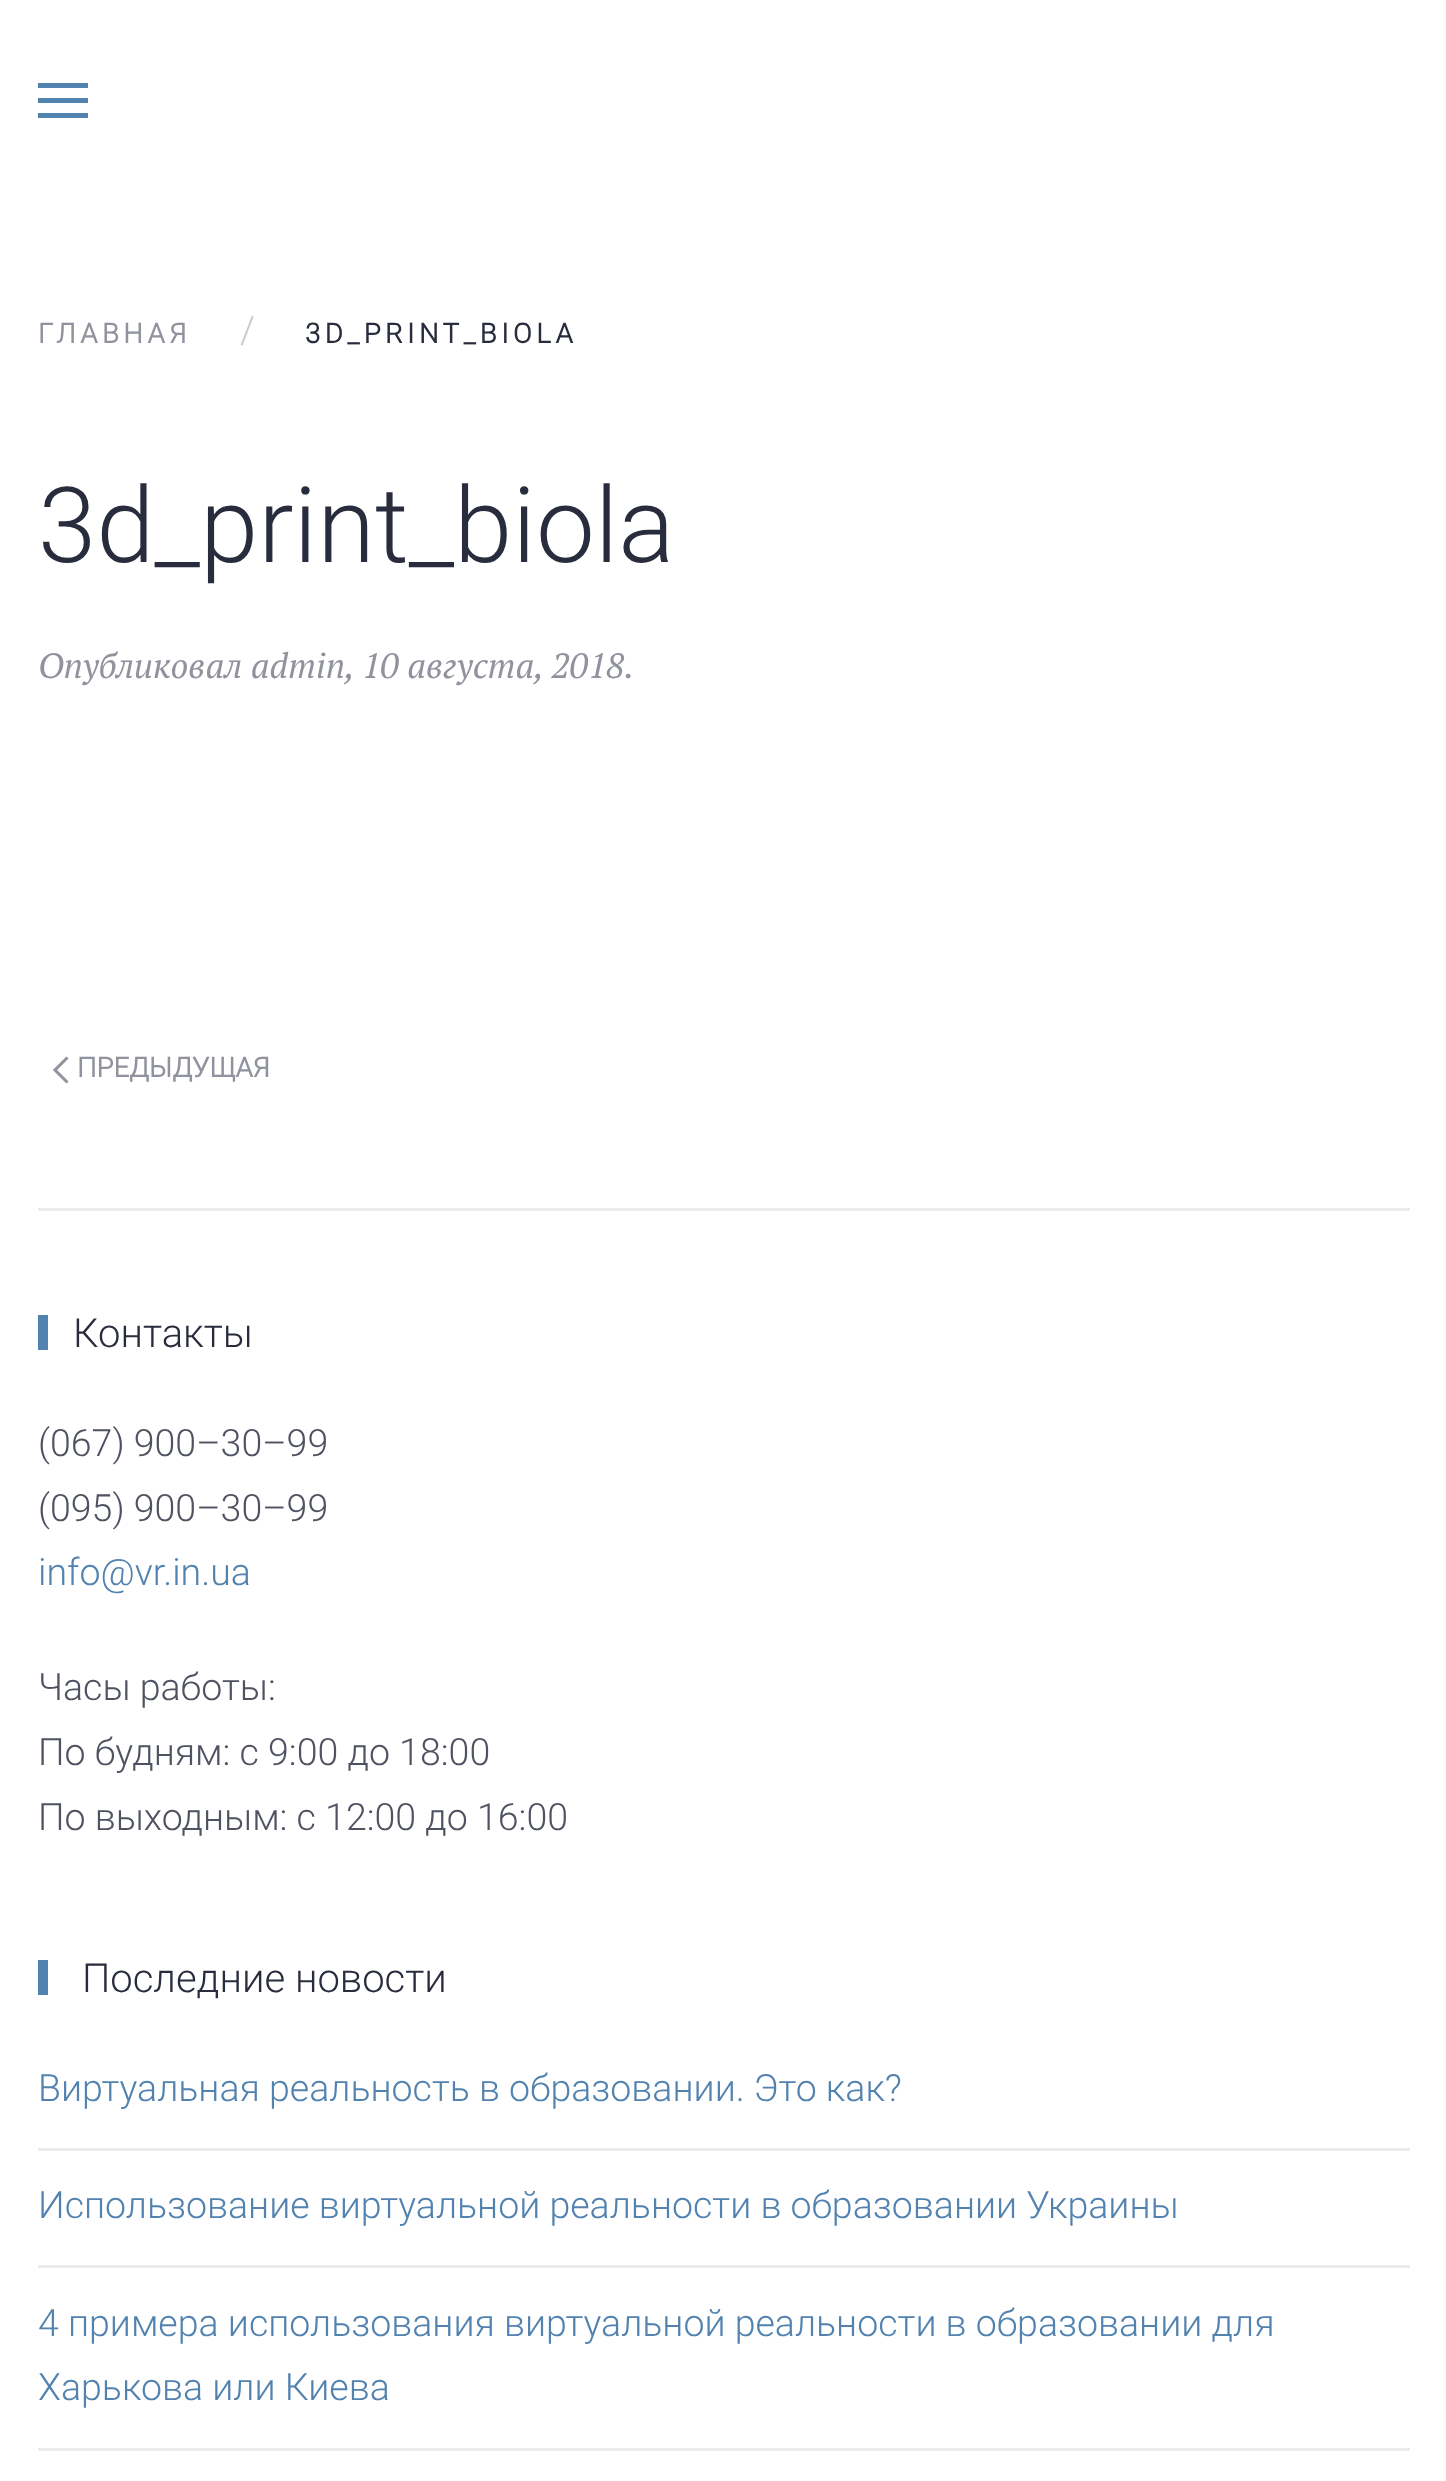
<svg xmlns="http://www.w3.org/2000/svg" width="1446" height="2481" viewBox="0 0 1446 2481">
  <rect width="100%" height="100%" fill="#ffffff"/>
  <rect x="38" y="83" width="50" height="5" fill="#5282af"/>
  <rect x="38" y="98" width="50" height="5" fill="#5282af"/>
  <rect x="38" y="113" width="50" height="5" fill="#5282af"/>
  <text x="38" y="343" font-family="Roboto" font-size="27.5" font-weight="bold" letter-spacing="4.5" fill="#90929d">ГЛАВНАЯ</text>
  <text x="240" y="343" font-family="Roboto" font-size="37.5" font-weight="300" fill="#c8c9ce">/</text>
  <text x="305" y="343" font-family="Roboto" font-size="27.5" font-weight="bold" letter-spacing="4.5" fill="#292c3d">3D_PRINT_BIOLA</text>
  <text x="38" y="562" font-family="Roboto" font-size="105" font-weight="300" fill="#292c3d">3d_print_biola</text>
  <text x="38" y="678" font-family="PT Serif" font-size="35" font-style="italic" fill="#90929d">Опубликовал admin, 10 августа, 2018.</text>
  <path d="M67.5 1057.5L55 1070L67.5 1082.5" fill="none" stroke="#90929d" stroke-width="3"/>
  <text x="77" y="1077" font-family="Roboto" font-size="27.5" font-weight="bold" fill="#90929d">ПРЕДЫДУЩАЯ</text>
  <rect x="38" y="1208" width="1372" height="3" fill="#ebebed"/>
  <rect x="38" y="1315" width="10" height="35" fill="#5282af"/>
  <text x="73" y="1347" font-family="Roboto" font-size="40" font-weight="300" fill="#292c3d">Контакты</text>
  <text x="38" y="1456" font-family="Roboto" font-size="37.5" font-weight="300" fill="#4f5260">(067) 900–30–99</text>
  <text x="38" y="1521" font-family="Roboto" font-size="37.5" font-weight="300" fill="#4f5260">(095) 900–30–99</text>
  <text x="38" y="1585" font-family="Roboto" font-size="37.5" font-weight="300" fill="#5282af">info@vr.in.ua</text>
  <text x="38" y="1700" font-family="Roboto" font-size="37.5" font-weight="300" fill="#4f5260">Часы работы:</text>
  <text x="38" y="1765" font-family="Roboto" font-size="37.5" font-weight="300" fill="#4f5260">По будням: с 9:00 до 18:00</text>
  <text x="38" y="1830" font-family="Roboto" font-size="37.5" font-weight="300" fill="#4f5260">По выходным: с 12:00 до 16:00</text>
  <rect x="38" y="1960" width="10" height="35" fill="#5282af"/>
  <text x="82" y="1992" font-family="Roboto" font-size="40" font-weight="300" fill="#292c3d">Последние новости</text>
  <text x="38" y="2101" font-family="Roboto" font-size="37.5" font-weight="300" fill="#5282af">Виртуальная реальность в образовании. Это как?</text>
  <rect x="38" y="2148" width="1372" height="3" fill="#ebebed"/>
  <text x="38" y="2218" font-family="Roboto" font-size="37.5" font-weight="300" fill="#5282af">Использование виртуальной реальности в образовании Украины</text>
  <rect x="38" y="2265" width="1372" height="3" fill="#ebebed"/>
  <text x="38" y="2336" font-family="Roboto" font-size="37.5" font-weight="300" fill="#5282af">4 примера использования виртуальной реальности в образовании для</text>
  <text x="38" y="2400" font-family="Roboto" font-size="37.5" font-weight="300" fill="#5282af">Харькова или Киева</text>
  <rect x="38" y="2448" width="1372" height="3" fill="#ebebed"/>
</svg>
